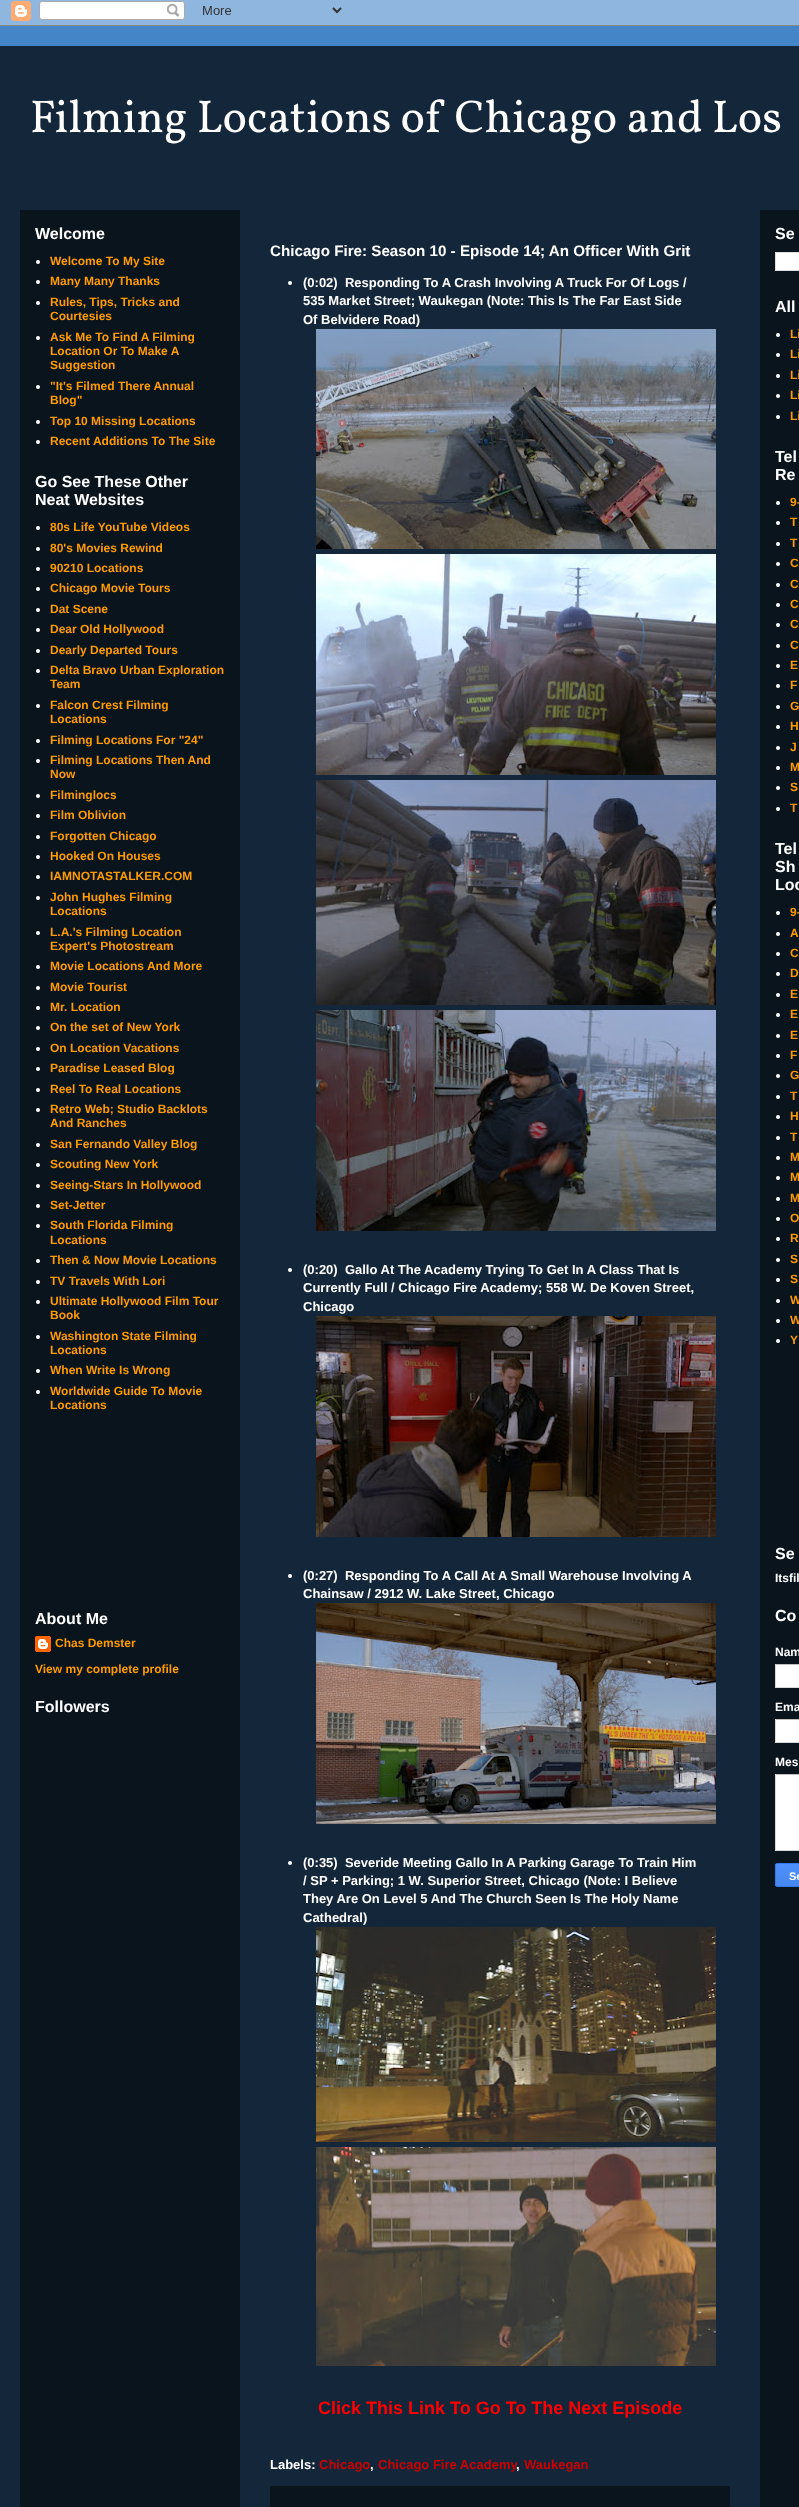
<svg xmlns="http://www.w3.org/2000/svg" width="799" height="2507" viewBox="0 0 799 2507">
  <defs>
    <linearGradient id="g1" gradientUnits="userSpaceOnUse" x1="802" y1="1864" x2="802" y2="1886"><stop offset="0" stop-color="#4d90fe"/><stop offset="1" stop-color="#4787ed"/></linearGradient>
  </defs>
  <rect width="100%" height="100%" fill="#4485c8"/>
  <image x="0" y="0" width="799" height="26" href="img1.png"/>
  <rect x="0" y="46" width="799" height="2461" fill="#14273a"/>
  <text x="30" y="132" font-family="Vollkorn" font-size="46" fill="#ffffff">Filming Locations of Chicago and Los</text>
  <rect x="20" y="210" width="220" height="2297" fill="#0a141d"/>
  <rect x="760" y="210" width="39" height="2297" fill="#0a141d"/>
  <text x="35" y="239" font-family="Liberation Sans" font-size="16" font-weight="bold" fill="#ffffff">Welcome</text>
  <circle cx="38" cy="262" r="2" fill="#ffffff"/>
  <text x="50" y="265" font-family="Liberation Sans" font-size="12" font-weight="bold" fill="#ff9b00">Welcome To My Site</text>
  <circle cx="38" cy="282" r="2" fill="#ffffff"/>
  <text x="50" y="285" font-family="Liberation Sans" font-size="12" font-weight="bold" fill="#ff9b00">Many Many Thanks</text>
  <circle cx="38" cy="303" r="2" fill="#ffffff"/>
  <text x="50" y="306" font-family="Liberation Sans" font-size="12" font-weight="bold" fill="#ff9b00">Rules, Tips, Tricks and</text>
  <text x="50" y="320" font-family="Liberation Sans" font-size="12" font-weight="bold" fill="#ff9b00">Courtesies</text>
  <circle cx="38" cy="338" r="2" fill="#ffffff"/>
  <text x="50" y="341" font-family="Liberation Sans" font-size="12" font-weight="bold" fill="#ff9b00">Ask Me To Find A Filming</text>
  <text x="50" y="355" font-family="Liberation Sans" font-size="12" font-weight="bold" fill="#ff9b00">Location Or To Make A</text>
  <text x="50" y="369" font-family="Liberation Sans" font-size="12" font-weight="bold" fill="#ff9b00">Suggestion</text>
  <circle cx="38" cy="387" r="2" fill="#ffffff"/>
  <text x="50" y="390" font-family="Liberation Sans" font-size="12" font-weight="bold" fill="#ff9b00">"It's Filmed There Annual</text>
  <text x="50" y="404" font-family="Liberation Sans" font-size="12" font-weight="bold" fill="#ff9b00">Blog"</text>
  <circle cx="38" cy="422" r="2" fill="#ffffff"/>
  <text x="50" y="425" font-family="Liberation Sans" font-size="12" font-weight="bold" fill="#ff9b00">Top 10 Missing Locations</text>
  <circle cx="38" cy="442" r="2" fill="#ffffff"/>
  <text x="50" y="445" font-family="Liberation Sans" font-size="12" font-weight="bold" fill="#ff9b00">Recent Additions To The Site</text>
  <text x="35" y="487" font-family="Liberation Sans" font-size="16" font-weight="bold" fill="#ffffff">Go See These Other</text>
  <text x="35" y="505" font-family="Liberation Sans" font-size="16" font-weight="bold" fill="#ffffff">Neat Websites</text>
  <circle cx="38" cy="528" r="2" fill="#ffffff"/>
  <text x="50" y="531" font-family="Liberation Sans" font-size="12" font-weight="bold" fill="#ff9b00">80s Life YouTube Videos</text>
  <circle cx="38" cy="549" r="2" fill="#ffffff"/>
  <text x="50" y="552" font-family="Liberation Sans" font-size="12" font-weight="bold" fill="#ff9b00">80's Movies Rewind</text>
  <circle cx="38" cy="569" r="2" fill="#ffffff"/>
  <text x="50" y="572" font-family="Liberation Sans" font-size="12" font-weight="bold" fill="#ff9b00">90210 Locations</text>
  <circle cx="38" cy="589" r="2" fill="#ffffff"/>
  <text x="50" y="592" font-family="Liberation Sans" font-size="12" font-weight="bold" fill="#ff9b00">Chicago Movie Tours</text>
  <circle cx="38" cy="610" r="2" fill="#ffffff"/>
  <text x="50" y="613" font-family="Liberation Sans" font-size="12" font-weight="bold" fill="#ff9b00">Dat Scene</text>
  <circle cx="38" cy="630" r="2" fill="#ffffff"/>
  <text x="50" y="633" font-family="Liberation Sans" font-size="12" font-weight="bold" fill="#ff9b00">Dear Old Hollywood</text>
  <circle cx="38" cy="651" r="2" fill="#ffffff"/>
  <text x="50" y="654" font-family="Liberation Sans" font-size="12" font-weight="bold" fill="#ff9b00">Dearly Departed Tours</text>
  <circle cx="38" cy="671" r="2" fill="#ffffff"/>
  <text x="50" y="674" font-family="Liberation Sans" font-size="12" font-weight="bold" fill="#ff9b00">Delta Bravo Urban Exploration</text>
  <text x="50" y="688" font-family="Liberation Sans" font-size="12" font-weight="bold" fill="#ff9b00">Team</text>
  <circle cx="38" cy="706" r="2" fill="#ffffff"/>
  <text x="50" y="709" font-family="Liberation Sans" font-size="12" font-weight="bold" fill="#ff9b00">Falcon Crest Filming</text>
  <text x="50" y="723" font-family="Liberation Sans" font-size="12" font-weight="bold" fill="#ff9b00">Locations</text>
  <circle cx="38" cy="741" r="2" fill="#ffffff"/>
  <text x="50" y="744" font-family="Liberation Sans" font-size="12" font-weight="bold" fill="#ff9b00">Filming Locations For "24"</text>
  <circle cx="38" cy="761" r="2" fill="#ffffff"/>
  <text x="50" y="764" font-family="Liberation Sans" font-size="12" font-weight="bold" fill="#ff9b00">Filming Locations Then And</text>
  <text x="50" y="778" font-family="Liberation Sans" font-size="12" font-weight="bold" fill="#ff9b00">Now</text>
  <circle cx="38" cy="796" r="2" fill="#ffffff"/>
  <text x="50" y="799" font-family="Liberation Sans" font-size="12" font-weight="bold" fill="#ff9b00">Filminglocs</text>
  <circle cx="38" cy="816" r="2" fill="#ffffff"/>
  <text x="50" y="819" font-family="Liberation Sans" font-size="12" font-weight="bold" fill="#ff9b00">Film Oblivion</text>
  <circle cx="38" cy="837" r="2" fill="#ffffff"/>
  <text x="50" y="840" font-family="Liberation Sans" font-size="12" font-weight="bold" fill="#ff9b00">Forgotten Chicago</text>
  <circle cx="38" cy="857" r="2" fill="#ffffff"/>
  <text x="50" y="860" font-family="Liberation Sans" font-size="12" font-weight="bold" fill="#ff9b00">Hooked On Houses</text>
  <circle cx="38" cy="877" r="2" fill="#ffffff"/>
  <text x="50" y="880" font-family="Liberation Sans" font-size="12" font-weight="bold" fill="#ff9b00">IAMNOTASTALKER.COM</text>
  <circle cx="38" cy="898" r="2" fill="#ffffff"/>
  <text x="50" y="901" font-family="Liberation Sans" font-size="12" font-weight="bold" fill="#ff9b00">John Hughes Filming</text>
  <text x="50" y="915" font-family="Liberation Sans" font-size="12" font-weight="bold" fill="#ff9b00">Locations</text>
  <circle cx="38" cy="933" r="2" fill="#ffffff"/>
  <text x="50" y="936" font-family="Liberation Sans" font-size="12" font-weight="bold" fill="#ff9b00">L.A.'s Filming Location</text>
  <text x="50" y="950" font-family="Liberation Sans" font-size="12" font-weight="bold" fill="#ff9b00">Expert's Photostream</text>
  <circle cx="38" cy="967" r="2" fill="#ffffff"/>
  <text x="50" y="970" font-family="Liberation Sans" font-size="12" font-weight="bold" fill="#ff9b00">Movie Locations And More</text>
  <circle cx="38" cy="988" r="2" fill="#ffffff"/>
  <text x="50" y="991" font-family="Liberation Sans" font-size="12" font-weight="bold" fill="#ff9b00">Movie Tourist</text>
  <circle cx="38" cy="1008" r="2" fill="#ffffff"/>
  <text x="50" y="1011" font-family="Liberation Sans" font-size="12" font-weight="bold" fill="#ff9b00">Mr. Location</text>
  <circle cx="38" cy="1028" r="2" fill="#ffffff"/>
  <text x="50" y="1031" font-family="Liberation Sans" font-size="12" font-weight="bold" fill="#ff9b00">On the set of New York</text>
  <circle cx="38" cy="1049" r="2" fill="#ffffff"/>
  <text x="50" y="1052" font-family="Liberation Sans" font-size="12" font-weight="bold" fill="#ff9b00">On Location Vacations</text>
  <circle cx="38" cy="1069" r="2" fill="#ffffff"/>
  <text x="50" y="1072" font-family="Liberation Sans" font-size="12" font-weight="bold" fill="#ff9b00">Paradise Leased Blog</text>
  <circle cx="38" cy="1090" r="2" fill="#ffffff"/>
  <text x="50" y="1093" font-family="Liberation Sans" font-size="12" font-weight="bold" fill="#ff9b00">Reel To Real Locations</text>
  <circle cx="38" cy="1110" r="2" fill="#ffffff"/>
  <text x="50" y="1113" font-family="Liberation Sans" font-size="12" font-weight="bold" fill="#ff9b00">Retro Web; Studio Backlots</text>
  <text x="50" y="1127" font-family="Liberation Sans" font-size="12" font-weight="bold" fill="#ff9b00">And Ranches</text>
  <circle cx="38" cy="1145" r="2" fill="#ffffff"/>
  <text x="50" y="1148" font-family="Liberation Sans" font-size="12" font-weight="bold" fill="#ff9b00">San Fernando Valley Blog</text>
  <circle cx="38" cy="1165" r="2" fill="#ffffff"/>
  <text x="50" y="1168" font-family="Liberation Sans" font-size="12" font-weight="bold" fill="#ff9b00">Scouting New York</text>
  <circle cx="38" cy="1186" r="2" fill="#ffffff"/>
  <text x="50" y="1189" font-family="Liberation Sans" font-size="12" font-weight="bold" fill="#ff9b00">Seeing-Stars In Hollywood</text>
  <circle cx="38" cy="1206" r="2" fill="#ffffff"/>
  <text x="50" y="1209" font-family="Liberation Sans" font-size="12" font-weight="bold" fill="#ff9b00">Set-Jetter</text>
  <circle cx="38" cy="1226" r="2" fill="#ffffff"/>
  <text x="50" y="1229" font-family="Liberation Sans" font-size="12" font-weight="bold" fill="#ff9b00">South Florida Filming</text>
  <text x="50" y="1244" font-family="Liberation Sans" font-size="12" font-weight="bold" fill="#ff9b00">Locations</text>
  <circle cx="38" cy="1261" r="2" fill="#ffffff"/>
  <text x="50" y="1264" font-family="Liberation Sans" font-size="12" font-weight="bold" fill="#ff9b00">Then &amp; Now Movie Locations</text>
  <circle cx="38" cy="1282" r="2" fill="#ffffff"/>
  <text x="50" y="1285" font-family="Liberation Sans" font-size="12" font-weight="bold" fill="#ff9b00">TV Travels With Lori</text>
  <circle cx="38" cy="1302" r="2" fill="#ffffff"/>
  <text x="50" y="1305" font-family="Liberation Sans" font-size="12" font-weight="bold" fill="#ff9b00">Ultimate Hollywood Film Tour</text>
  <text x="50" y="1319" font-family="Liberation Sans" font-size="12" font-weight="bold" fill="#ff9b00">Book</text>
  <circle cx="38" cy="1337" r="2" fill="#ffffff"/>
  <text x="50" y="1340" font-family="Liberation Sans" font-size="12" font-weight="bold" fill="#ff9b00">Washington State Filming</text>
  <text x="50" y="1354" font-family="Liberation Sans" font-size="12" font-weight="bold" fill="#ff9b00">Locations</text>
  <circle cx="38" cy="1371" r="2" fill="#ffffff"/>
  <text x="50" y="1374" font-family="Liberation Sans" font-size="12" font-weight="bold" fill="#ff9b00">When Write Is Wrong</text>
  <circle cx="38" cy="1392" r="2" fill="#ffffff"/>
  <text x="50" y="1395" font-family="Liberation Sans" font-size="12" font-weight="bold" fill="#ff9b00">Worldwide Guide To Movie</text>
  <text x="50" y="1409" font-family="Liberation Sans" font-size="12" font-weight="bold" fill="#ff9b00">Locations</text>
  <text x="35" y="1624" font-family="Liberation Sans" font-size="16" font-weight="bold" fill="#ffffff">About Me</text>
  <image x="35" y="1636" width="16" height="16" href="img2.png"/>
  <text x="55" y="1647" font-family="Liberation Sans" font-size="12" font-weight="bold" fill="#ff9b00">Chas Demster</text>
  <text x="35" y="1673" font-family="Liberation Sans" font-size="12" font-weight="bold" fill="#ff9b00">View my complete profile</text>
  <text x="35" y="1712" font-family="Liberation Sans" font-size="16" font-weight="bold" fill="#ffffff">Followers</text>
  <text x="270" y="256" font-family="Liberation Sans" font-size="15.2" font-weight="bold" fill="#ffffff">Chicago Fire: Season 10 - Episode 14; An Officer With Grit</text>
  <circle cx="290" cy="283" r="2" fill="#ffffff"/>
  <text x="303" y="287" font-family="Liberation Sans" font-size="13" font-weight="bold" fill="#ffffff" xml:space="preserve">(0:02)  Responding To A Crash Involving A Truck For Of Logs /</text>
  <text x="303" y="305" font-family="Liberation Sans" font-size="13" font-weight="bold" fill="#ffffff">535 Market Street; Waukegan (Note: This Is The Far East Side</text>
  <text x="303" y="324" font-family="Liberation Sans" font-size="13" font-weight="bold" fill="#ffffff">Of Belvidere Road)</text>
  <image x="316" y="329" width="400" height="220" href="img3.png"/>
  <image x="316" y="554" width="400" height="221" href="img4.png"/>
  <image x="316" y="780" width="400" height="225" href="img5.png"/>
  <image x="316" y="1010" width="400" height="221" href="img6.png"/>
  <circle cx="290" cy="1270" r="2" fill="#ffffff"/>
  <text x="303" y="1274" font-family="Liberation Sans" font-size="13" font-weight="bold" fill="#ffffff" xml:space="preserve">(0:20)  Gallo At The Academy Trying To Get In A Class That Is</text>
  <text x="303" y="1292" font-family="Liberation Sans" font-size="13" font-weight="bold" fill="#ffffff">Currently Full / Chicago Fire Academy; 558 W. De Koven Street,</text>
  <text x="303" y="1311" font-family="Liberation Sans" font-size="13" font-weight="bold" fill="#ffffff">Chicago</text>
  <image x="316" y="1316" width="400" height="221" href="img7.png"/>
  <circle cx="290" cy="1576" r="2" fill="#ffffff"/>
  <text x="303" y="1580" font-family="Liberation Sans" font-size="13" font-weight="bold" fill="#ffffff" xml:space="preserve">(0:27)  Responding To A Call At A Small Warehouse Involving A</text>
  <text x="303" y="1598" font-family="Liberation Sans" font-size="13" font-weight="bold" fill="#ffffff">Chainsaw / 2912 W. Lake Street, Chicago</text>
  <image x="316" y="1603" width="400" height="221" href="img8.png"/>
  <circle cx="290" cy="1863" r="2" fill="#ffffff"/>
  <text x="303" y="1867" font-family="Liberation Sans" font-size="13" font-weight="bold" fill="#ffffff" xml:space="preserve">(0:35)  Severide Meeting Gallo In A Parking Garage To Train Him</text>
  <text x="303" y="1885" font-family="Liberation Sans" font-size="13" font-weight="bold" fill="#ffffff">/ SP + Parking; 1 W. Superior Street, Chicago (Note: I Believe</text>
  <text x="303" y="1903" font-family="Liberation Sans" font-size="13" font-weight="bold" fill="#ffffff">They Are On Level 5 And The Church Seen Is The Holy Name</text>
  <text x="303" y="1922" font-family="Liberation Sans" font-size="13" font-weight="bold" fill="#ffffff">Cathedral)</text>
  <image x="316" y="1927" width="400" height="215" href="img9.png"/>
  <image x="316" y="2147" width="400" height="219" href="img10.png"/>
  <text x="318" y="2414" font-family="Liberation Sans" font-size="18" font-weight="bold" fill="#ff0000">Click This Link To Go To The Next Episode</text>
  <text x="270" y="2469" font-family="Liberation Sans" font-size="13" font-weight="bold" fill="#ffffff">Labels:</text>
  <text x="319" y="2469" font-family="Liberation Sans" font-size="13" font-weight="bold" fill="#cc0000">Chicago</text>
  <text x="370" y="2469" font-family="Liberation Sans" font-size="13" font-weight="bold" fill="#ffffff">,</text>
  <text x="378" y="2469" font-family="Liberation Sans" font-size="13" font-weight="bold" fill="#cc0000">Chicago Fire Academy</text>
  <text x="516" y="2469" font-family="Liberation Sans" font-size="13" font-weight="bold" fill="#ffffff">,</text>
  <text x="524" y="2469" font-family="Liberation Sans" font-size="13" font-weight="bold" fill="#cc0000">Waukegan</text>
  <rect x="270" y="2486" width="460" height="21" fill="#0a141d"/>
  <text x="775" y="239" font-family="Liberation Sans" font-size="16" font-weight="bold" fill="#ffffff">Se</text>
  <rect x="775.5" y="252.5" width="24" height="18" fill="#ffffff" stroke="#dddddd"/>
  <text x="775" y="312" font-family="Liberation Sans" font-size="16" font-weight="bold" fill="#ffffff">All</text>
  <circle cx="778" cy="335" r="2" fill="#ffffff"/>
  <text x="790" y="338" font-family="Liberation Sans" font-size="12" font-weight="bold" fill="#ff9b00">Li</text>
  <circle cx="778" cy="355" r="2" fill="#ffffff"/>
  <text x="790" y="358" font-family="Liberation Sans" font-size="12" font-weight="bold" fill="#ff9b00">Li</text>
  <circle cx="778" cy="376" r="2" fill="#ffffff"/>
  <text x="790" y="379" font-family="Liberation Sans" font-size="12" font-weight="bold" fill="#ff9b00">Li</text>
  <circle cx="778" cy="396" r="2" fill="#ffffff"/>
  <text x="790" y="399" font-family="Liberation Sans" font-size="12" font-weight="bold" fill="#ff9b00">Li</text>
  <circle cx="778" cy="417" r="2" fill="#ffffff"/>
  <text x="790" y="420" font-family="Liberation Sans" font-size="12" font-weight="bold" fill="#ff9b00">Li</text>
  <text x="775" y="462" font-family="Liberation Sans" font-size="16" font-weight="bold" fill="#ffffff">Tel</text>
  <text x="775" y="480" font-family="Liberation Sans" font-size="16" font-weight="bold" fill="#ffffff">Re</text>
  <circle cx="778" cy="503" r="2" fill="#ffffff"/>
  <text x="790" y="506" font-family="Liberation Sans" font-size="12" font-weight="bold" fill="#ff9b00">9-</text>
  <circle cx="778" cy="523" r="2" fill="#ffffff"/>
  <text x="790" y="526" font-family="Liberation Sans" font-size="12" font-weight="bold" fill="#ff9b00">T</text>
  <circle cx="778" cy="544" r="2" fill="#ffffff"/>
  <text x="790" y="547" font-family="Liberation Sans" font-size="12" font-weight="bold" fill="#ff9b00">T</text>
  <circle cx="778" cy="564" r="2" fill="#ffffff"/>
  <text x="790" y="567" font-family="Liberation Sans" font-size="12" font-weight="bold" fill="#ff9b00">C</text>
  <circle cx="778" cy="585" r="2" fill="#ffffff"/>
  <text x="790" y="588" font-family="Liberation Sans" font-size="12" font-weight="bold" fill="#ff9b00">C</text>
  <circle cx="778" cy="605" r="2" fill="#ffffff"/>
  <text x="790" y="608" font-family="Liberation Sans" font-size="12" font-weight="bold" fill="#ff9b00">C</text>
  <circle cx="778" cy="625" r="2" fill="#ffffff"/>
  <text x="790" y="628" font-family="Liberation Sans" font-size="12" font-weight="bold" fill="#ff9b00">C</text>
  <circle cx="778" cy="646" r="2" fill="#ffffff"/>
  <text x="790" y="649" font-family="Liberation Sans" font-size="12" font-weight="bold" fill="#ff9b00">C</text>
  <circle cx="778" cy="666" r="2" fill="#ffffff"/>
  <text x="790" y="669" font-family="Liberation Sans" font-size="12" font-weight="bold" fill="#ff9b00">E</text>
  <circle cx="778" cy="686" r="2" fill="#ffffff"/>
  <text x="790" y="689" font-family="Liberation Sans" font-size="12" font-weight="bold" fill="#ff9b00">F</text>
  <circle cx="778" cy="707" r="2" fill="#ffffff"/>
  <text x="790" y="710" font-family="Liberation Sans" font-size="12" font-weight="bold" fill="#ff9b00">G</text>
  <circle cx="778" cy="727" r="2" fill="#ffffff"/>
  <text x="790" y="730" font-family="Liberation Sans" font-size="12" font-weight="bold" fill="#ff9b00">H</text>
  <circle cx="778" cy="748" r="2" fill="#ffffff"/>
  <text x="790" y="751" font-family="Liberation Sans" font-size="12" font-weight="bold" fill="#ff9b00">J</text>
  <circle cx="778" cy="768" r="2" fill="#ffffff"/>
  <text x="790" y="771" font-family="Liberation Sans" font-size="12" font-weight="bold" fill="#ff9b00">M</text>
  <circle cx="778" cy="788" r="2" fill="#ffffff"/>
  <text x="790" y="791" font-family="Liberation Sans" font-size="12" font-weight="bold" fill="#ff9b00">S</text>
  <circle cx="778" cy="809" r="2" fill="#ffffff"/>
  <text x="790" y="812" font-family="Liberation Sans" font-size="12" font-weight="bold" fill="#ff9b00">T</text>
  <text x="775" y="854" font-family="Liberation Sans" font-size="16" font-weight="bold" fill="#ffffff">Tel</text>
  <text x="775" y="872" font-family="Liberation Sans" font-size="16" font-weight="bold" fill="#ffffff">Sh</text>
  <text x="775" y="890" font-family="Liberation Sans" font-size="16" font-weight="bold" fill="#ffffff">Loc</text>
  <circle cx="778" cy="913" r="2" fill="#ffffff"/>
  <text x="790" y="916" font-family="Liberation Sans" font-size="12" font-weight="bold" fill="#ff9b00">9-</text>
  <circle cx="778" cy="934" r="2" fill="#ffffff"/>
  <text x="790" y="937" font-family="Liberation Sans" font-size="12" font-weight="bold" fill="#ff9b00">A</text>
  <circle cx="778" cy="954" r="2" fill="#ffffff"/>
  <text x="790" y="957" font-family="Liberation Sans" font-size="12" font-weight="bold" fill="#ff9b00">C</text>
  <circle cx="778" cy="974" r="2" fill="#ffffff"/>
  <text x="790" y="977" font-family="Liberation Sans" font-size="12" font-weight="bold" fill="#ff9b00">D</text>
  <circle cx="778" cy="995" r="2" fill="#ffffff"/>
  <text x="790" y="998" font-family="Liberation Sans" font-size="12" font-weight="bold" fill="#ff9b00">E</text>
  <circle cx="778" cy="1015" r="2" fill="#ffffff"/>
  <text x="790" y="1018" font-family="Liberation Sans" font-size="12" font-weight="bold" fill="#ff9b00">E</text>
  <circle cx="778" cy="1036" r="2" fill="#ffffff"/>
  <text x="790" y="1039" font-family="Liberation Sans" font-size="12" font-weight="bold" fill="#ff9b00">E</text>
  <circle cx="778" cy="1056" r="2" fill="#ffffff"/>
  <text x="790" y="1059" font-family="Liberation Sans" font-size="12" font-weight="bold" fill="#ff9b00">F</text>
  <circle cx="778" cy="1076" r="2" fill="#ffffff"/>
  <text x="790" y="1079" font-family="Liberation Sans" font-size="12" font-weight="bold" fill="#ff9b00">G</text>
  <circle cx="778" cy="1097" r="2" fill="#ffffff"/>
  <text x="790" y="1100" font-family="Liberation Sans" font-size="12" font-weight="bold" fill="#ff9b00">T</text>
  <circle cx="778" cy="1117" r="2" fill="#ffffff"/>
  <text x="790" y="1120" font-family="Liberation Sans" font-size="12" font-weight="bold" fill="#ff9b00">H</text>
  <circle cx="778" cy="1138" r="2" fill="#ffffff"/>
  <text x="790" y="1141" font-family="Liberation Sans" font-size="12" font-weight="bold" fill="#ff9b00">T</text>
  <circle cx="778" cy="1158" r="2" fill="#ffffff"/>
  <text x="790" y="1161" font-family="Liberation Sans" font-size="12" font-weight="bold" fill="#ff9b00">M</text>
  <circle cx="778" cy="1178" r="2" fill="#ffffff"/>
  <text x="790" y="1181" font-family="Liberation Sans" font-size="12" font-weight="bold" fill="#ff9b00">M</text>
  <circle cx="778" cy="1199" r="2" fill="#ffffff"/>
  <text x="790" y="1202" font-family="Liberation Sans" font-size="12" font-weight="bold" fill="#ff9b00">M</text>
  <circle cx="778" cy="1219" r="2" fill="#ffffff"/>
  <text x="790" y="1222" font-family="Liberation Sans" font-size="12" font-weight="bold" fill="#ff9b00">O</text>
  <circle cx="778" cy="1239" r="2" fill="#ffffff"/>
  <text x="790" y="1242" font-family="Liberation Sans" font-size="12" font-weight="bold" fill="#ff9b00">R</text>
  <circle cx="778" cy="1260" r="2" fill="#ffffff"/>
  <text x="790" y="1263" font-family="Liberation Sans" font-size="12" font-weight="bold" fill="#ff9b00">S</text>
  <circle cx="778" cy="1280" r="2" fill="#ffffff"/>
  <text x="790" y="1283" font-family="Liberation Sans" font-size="12" font-weight="bold" fill="#ff9b00">S</text>
  <circle cx="778" cy="1301" r="2" fill="#ffffff"/>
  <text x="790" y="1304" font-family="Liberation Sans" font-size="12" font-weight="bold" fill="#ff9b00">W</text>
  <circle cx="778" cy="1321" r="2" fill="#ffffff"/>
  <text x="790" y="1324" font-family="Liberation Sans" font-size="12" font-weight="bold" fill="#ff9b00">W</text>
  <circle cx="778" cy="1341" r="2" fill="#ffffff"/>
  <text x="790" y="1344" font-family="Liberation Sans" font-size="12" font-weight="bold" fill="#ff9b00">Y</text>
  <text x="775" y="1559" font-family="Liberation Sans" font-size="16" font-weight="bold" fill="#ffffff">Se</text>
  <text x="775" y="1582" font-family="Liberation Sans" font-size="12" font-weight="bold" fill="#ffffff">Itsfil</text>
  <text x="775" y="1621" font-family="Liberation Sans" font-size="16" font-weight="bold" fill="#ffffff">Co</text>
  <text x="775" y="1656" font-family="Liberation Sans" font-size="12" font-weight="bold" fill="#ffffff">Nam</text>
  <rect x="776" y="1665" width="23" height="22" fill="#ffffff"/>
  <rect x="775" y="1664" width="24" height="1" fill="#c0c0c0"/>
  <rect x="775" y="1687" width="24" height="1" fill="#d9d9d9"/>
  <rect x="775" y="1664" width="1" height="24" fill="#d9d9d9"/>
  <text x="775" y="1711" font-family="Liberation Sans" font-size="12" font-weight="bold" fill="#ffffff">Ema</text>
  <rect x="776" y="1720" width="23" height="22" fill="#ffffff"/>
  <rect x="775" y="1719" width="24" height="1" fill="#c0c0c0"/>
  <rect x="775" y="1742" width="24" height="1" fill="#d9d9d9"/>
  <rect x="775" y="1719" width="1" height="24" fill="#d9d9d9"/>
  <text x="775" y="1766" font-family="Liberation Sans" font-size="12" font-weight="bold" fill="#ffffff">Mes</text>
  <rect x="776" y="1775" width="23" height="75" fill="#ffffff"/>
  <rect x="775" y="1774" width="24" height="1" fill="#c0c0c0"/>
  <rect x="775" y="1850" width="24" height="1" fill="#d9d9d9"/>
  <rect x="775" y="1774" width="1" height="77" fill="#d9d9d9"/>
  <rect x="775" y="1864" width="24" height="22" fill="url(#g1)"/>
  <rect x="775.5" y="1863.5" width="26" height="23" rx="1.5" fill="none" stroke="#3079ed"/>
  <text x="789" y="1880" font-family="Liberation Sans" font-size="11" font-weight="bold" fill="#ffffff">Se</text>
</svg>
